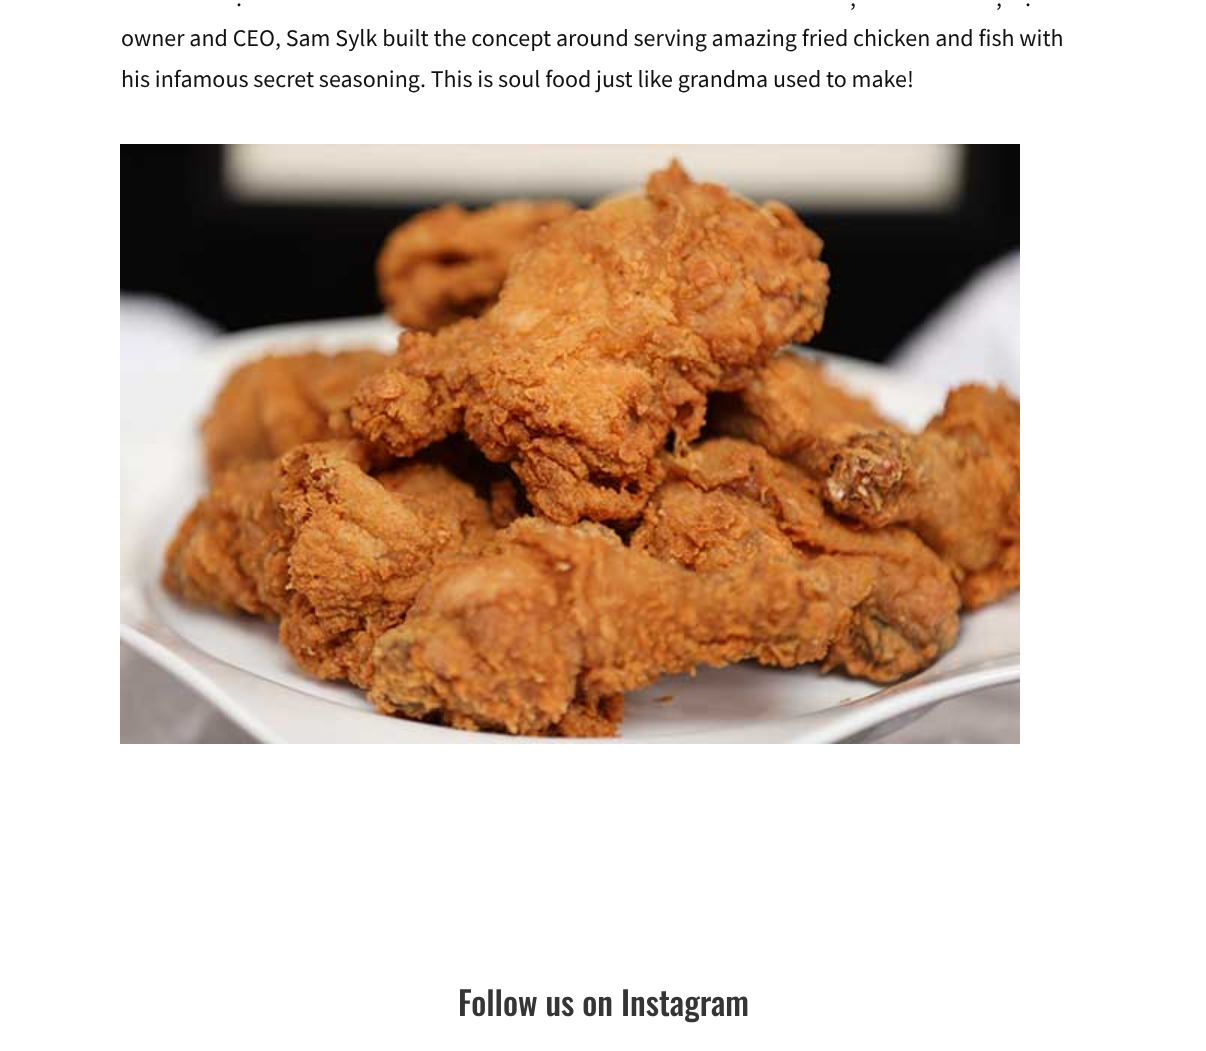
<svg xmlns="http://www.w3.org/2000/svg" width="1206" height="1051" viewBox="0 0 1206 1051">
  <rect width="100%" height="100%" fill="#ffffff"/>
  <text x="236" y="6" font-family="Source Sans Pro" font-size="24" fill="#111111">.</text>
  <text x="850" y="6" font-family="Source Sans Pro" font-size="24" fill="#111111">,</text>
  <text x="996" y="6" font-family="Source Sans Pro" font-size="24" fill="#111111">,</text>
  <text x="1025" y="6" font-family="Source Sans Pro" font-size="24" fill="#111111">.</text>
  <text x="121" y="46" font-family="Source Sans Pro" font-size="24" fill="#111111">owner and CEO, Sam Sylk built the concept around serving amazing fried chicken and fish with</text>
  <text x="121" y="87" font-family="Source Sans Pro" font-size="24" fill="#111111">his infamous secret seasoning. This is soul food just like grandma used to make!</text>
  <image x="120" y="144" width="900" height="600" href="img1.png"/>
  <text x="458" y="1016" font-family="Oswald" font-size="33" font-weight="500" fill="#353535">Follow us on Instagram</text>
</svg>
